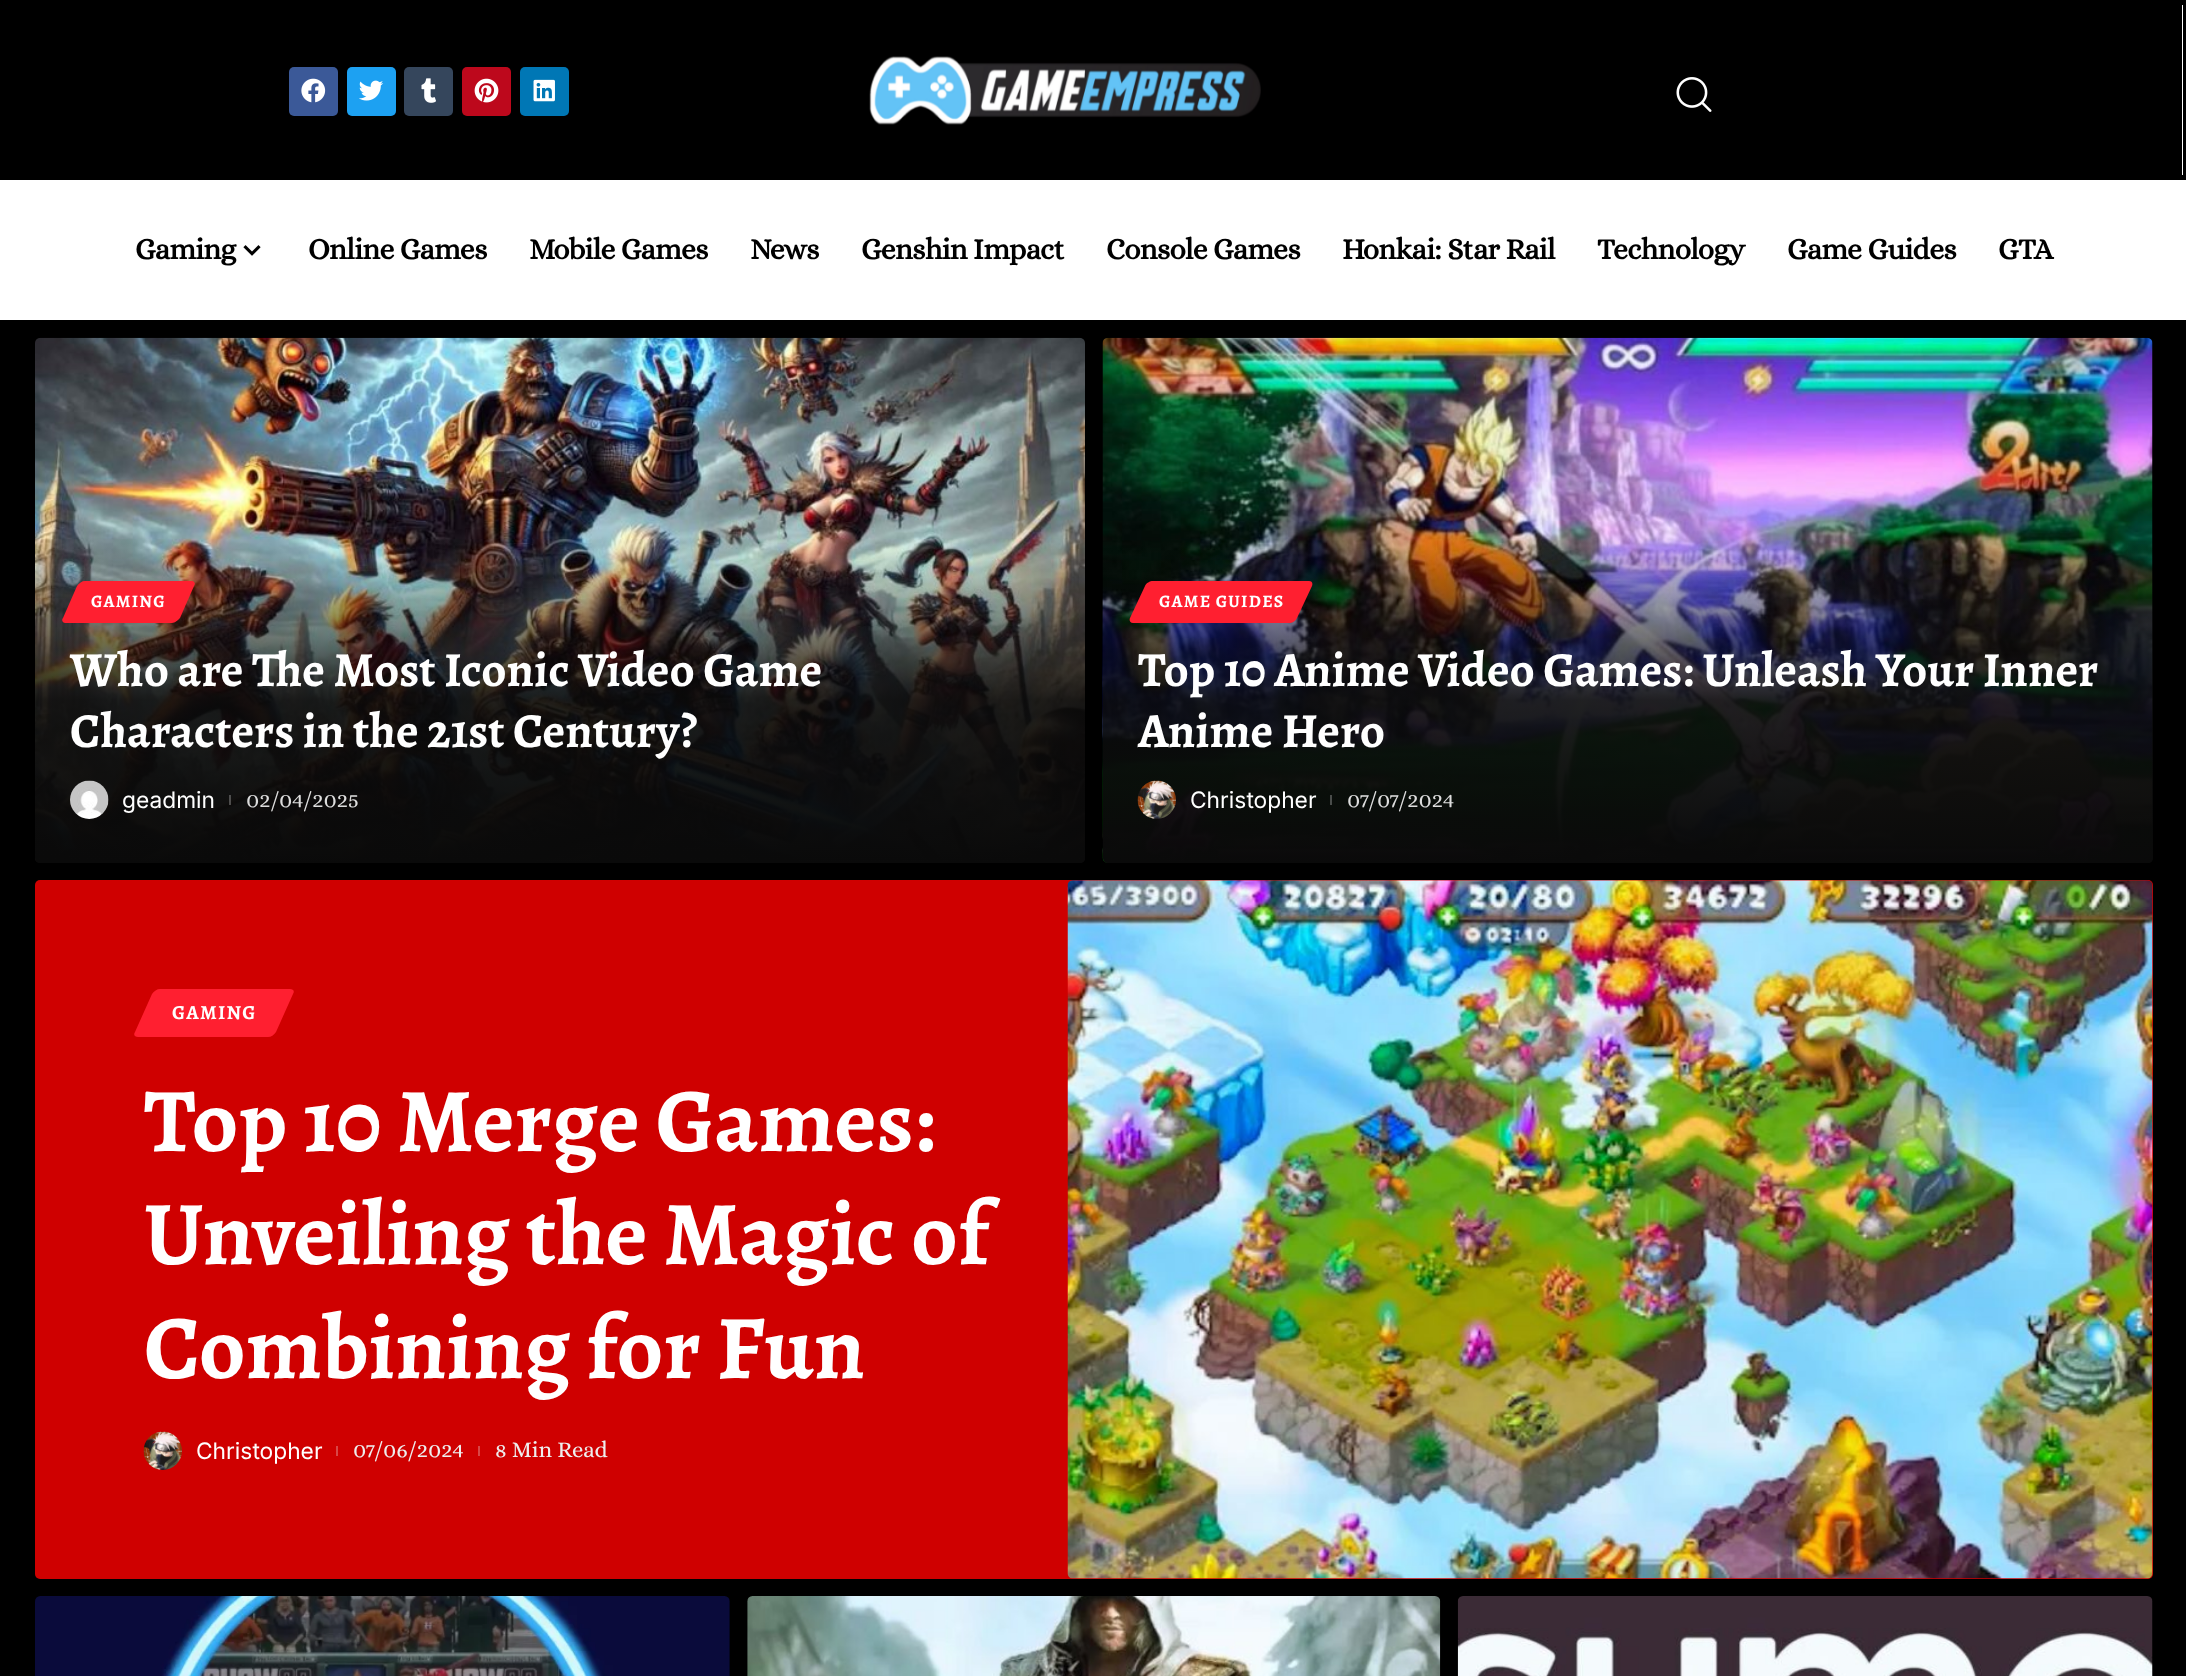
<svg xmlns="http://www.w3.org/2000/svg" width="2186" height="1676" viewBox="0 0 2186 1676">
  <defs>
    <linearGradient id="g1" gradientUnits="userSpaceOnUse" x1="560" y1="863" x2="560" y2="537"><stop offset="0" stop-color="#0a0a0a"/><stop offset="0.5" stop-color="#0a0a0a" stop-opacity="0.9"/><stop offset="1" stop-color="#0a0a0a" stop-opacity="0"/></linearGradient>
    <linearGradient id="g2" gradientUnits="userSpaceOnUse" x1="1628" y1="863" x2="1628" y2="537"><stop offset="0" stop-color="#0a0a0a"/><stop offset="0.5" stop-color="#0a0a0a" stop-opacity="0.9"/><stop offset="1" stop-color="#0a0a0a" stop-opacity="0"/></linearGradient>
  </defs>
  <rect width="100%" height="100%" fill="#000000"/>
  <rect x="2182" y="5" width="1" height="170" fill="#ffffff"/>
  <rect x="289" y="67" width="49" height="49" rx="5" fill="#3b5998"/>
  <image x="301" y="78" width="25" height="25" href="img1.png"/>
  <rect x="347" y="67" width="49" height="49" rx="5" fill="#1da1f2"/>
  <image x="359" y="80" width="25" height="21" href="img2.png"/>
  <rect x="404" y="67" width="49" height="49" rx="5" fill="#35465c"/>
  <image x="421" y="78" width="15" height="25" href="img3.png"/>
  <rect x="462" y="67" width="49" height="49" rx="5" fill="#bd081c"/>
  <image x="474" y="78" width="25" height="25" href="img4.png"/>
  <rect x="520" y="67" width="49" height="49" rx="5" fill="#0077b5"/>
  <image x="533" y="79" width="22" height="23" href="img5.png"/>
  <image x="869" y="56" width="392" height="69" href="img6.png"/>
  <image x="1676" y="77" width="36" height="35" href="img7.png"/>
  <rect x="0" y="180" width="2186" height="140" fill="#ffffff"/>
  <text x="135" y="259" font-family="Alice" font-size="29.75" font-weight="bold" letter-spacing="-0.6" fill="#000000">Gaming</text>
  <image x="243" y="245" width="18" height="11" href="img8.png"/>
  <text x="308" y="259" font-family="Alice" font-size="29.75" font-weight="bold" letter-spacing="-0.6" fill="#000000">Online Games</text>
  <text x="529" y="259" font-family="Alice" font-size="29.75" font-weight="bold" letter-spacing="-0.6" fill="#000000">Mobile Games</text>
  <text x="750" y="259" font-family="Alice" font-size="29.75" font-weight="bold" letter-spacing="-0.6" fill="#000000">News</text>
  <text x="861" y="259" font-family="Alice" font-size="29.75" font-weight="bold" letter-spacing="-0.6" fill="#000000">Genshin Impact</text>
  <text x="1106" y="259" font-family="Alice" font-size="29.75" font-weight="bold" letter-spacing="-0.6" fill="#000000">Console Games</text>
  <text x="1342" y="259" font-family="Alice" font-size="29.75" font-weight="bold" letter-spacing="-0.6" fill="#000000">Honkai: Star Rail</text>
  <text x="1597" y="259" font-family="Alice" font-size="29.75" font-weight="bold" letter-spacing="-0.6" fill="#000000">Technology</text>
  <text x="1787" y="259" font-family="Alice" font-size="29.75" font-weight="bold" letter-spacing="-0.6" fill="#000000">Game Guides</text>
  <text x="1998" y="259" font-family="Alice" font-size="29.75" font-weight="bold" letter-spacing="-0.6" fill="#000000">GTA</text>
  <image x="35" y="337" width="1050" height="526" href="img9.png"/>
  <path d="M35 537H1085V858C1085 861 1083 863 1080 863H40C37 863 35 861 35 858Z" fill="url(#g1)"/>
  <path d="M85 581H191C194 581 196 583 194 586L180 618C178 620 175 623 172 623H65C63 623 61 620 63 618L77 586C79 583 82 581 85 581Z" fill="#ff1f30"/>
  <text x="91" y="607" font-family="Alegreya" font-size="17.5" font-weight="bold" letter-spacing="1.25" fill="#ffffff">GAMING</text>
  <text x="70" y="686" font-family="Alegreya" font-size="49" font-weight="bold" fill="#ffffff">Who are The Most Iconic Video Game</text>
  <text x="70" y="747" font-family="Alegreya" font-size="49" font-weight="bold" fill="#ffffff">Characters in the 21st Century?</text>
  <image x="70" y="780" width="39" height="39" href="img10.png"/>
  <text x="122" y="808" font-family="Inter" font-size="22.75" fill="#ffffff">geadmin</text>
  <rect x="229" y="795" width="2" height="10" fill="#dddddd" fill-opacity="0.3"/>
  <text x="246" y="807" font-family="Alice" font-size="22.75" fill="#dddddd">02/04/2025</text>
  <image x="1102" y="337" width="1051" height="526" href="img11.png"/>
  <path d="M1103 537H2153V858C2153 861 2151 863 2148 863H1108C1105 863 1103 861 1103 858Z" fill="url(#g2)"/>
  <path d="M1153 581H1309C1312 581 1313 583 1312 586L1297 618C1296 620 1293 623 1290 623H1133C1130 623 1129 620 1130 618L1145 586C1146 583 1150 581 1153 581Z" fill="#ff1f30"/>
  <text x="1159" y="607" font-family="Alegreya" font-size="17.5" font-weight="bold" letter-spacing="1.25" fill="#ffffff">GAME GUIDES</text>
  <text x="1138" y="686" font-family="Alegreya" font-size="49" font-weight="bold" fill="#ffffff">Top 10 Anime Video Games: Unleash Your Inner</text>
  <text x="1138" y="747" font-family="Alegreya" font-size="49" font-weight="bold" fill="#ffffff">Anime Hero</text>
  <image x="1137" y="780" width="39" height="39" href="img12.png"/>
  <text x="1190" y="808" font-family="Inter" font-size="22.75" fill="#ffffff">Christopher</text>
  <rect x="1330" y="795" width="2" height="10" fill="#494c4a"/>
  <text x="1347" y="807" font-family="Alice" font-size="22.75" fill="#dddddd">07/07/2024</text>
  <rect x="35" y="880" width="2118" height="699" rx="5" fill="#cf0000"/>
  <path d="M160 989H290C293 989 295 991 293 994L276 1032C274 1035 271 1037 268 1037H138C135 1037 133 1035 135 1032L152 994C154 991 157 989 160 989Z" fill="#ff1f30"/>
  <text x="172" y="1019" font-family="Alegreya" font-size="20" font-weight="bold" letter-spacing="1.25" fill="#ffffff">GAMING</text>
  <text x="144" y="1151" font-family="Alegreya" font-size="91" font-weight="bold" fill="#ffffff">Top 10 Merge Games:</text>
  <text x="144" y="1264" font-family="Alegreya" font-size="91" font-weight="bold" fill="#ffffff">Unveiling the Magic of</text>
  <text x="144" y="1378" font-family="Alegreya" font-size="91" font-weight="bold" fill="#ffffff">Combining for Fun</text>
  <image x="143" y="1431" width="39" height="39" href="img13.png"/>
  <text x="196" y="1459" font-family="Inter" font-size="22.75" fill="#ffffff">Christopher</text>
  <rect x="336" y="1446" width="2" height="10" fill="#d84747"/>
  <text x="353" y="1457" font-family="Alice" font-size="22.75" fill="#eeeeee">07/06/2024</text>
  <rect x="478" y="1446" width="2" height="10" fill="#d84747"/>
  <text x="495" y="1457" font-family="Alice" font-size="22.75" fill="#eeeeee">8 Min Read</text>
  <image x="1067" y="880" width="1086" height="699" href="img14.png"/>
  <image x="35" y="1596" width="695" height="80" href="img15.png"/>
  <image x="747" y="1596" width="694" height="80" href="img16.png"/>
  <image x="1457" y="1596" width="696" height="80" href="img17.png"/>
</svg>
